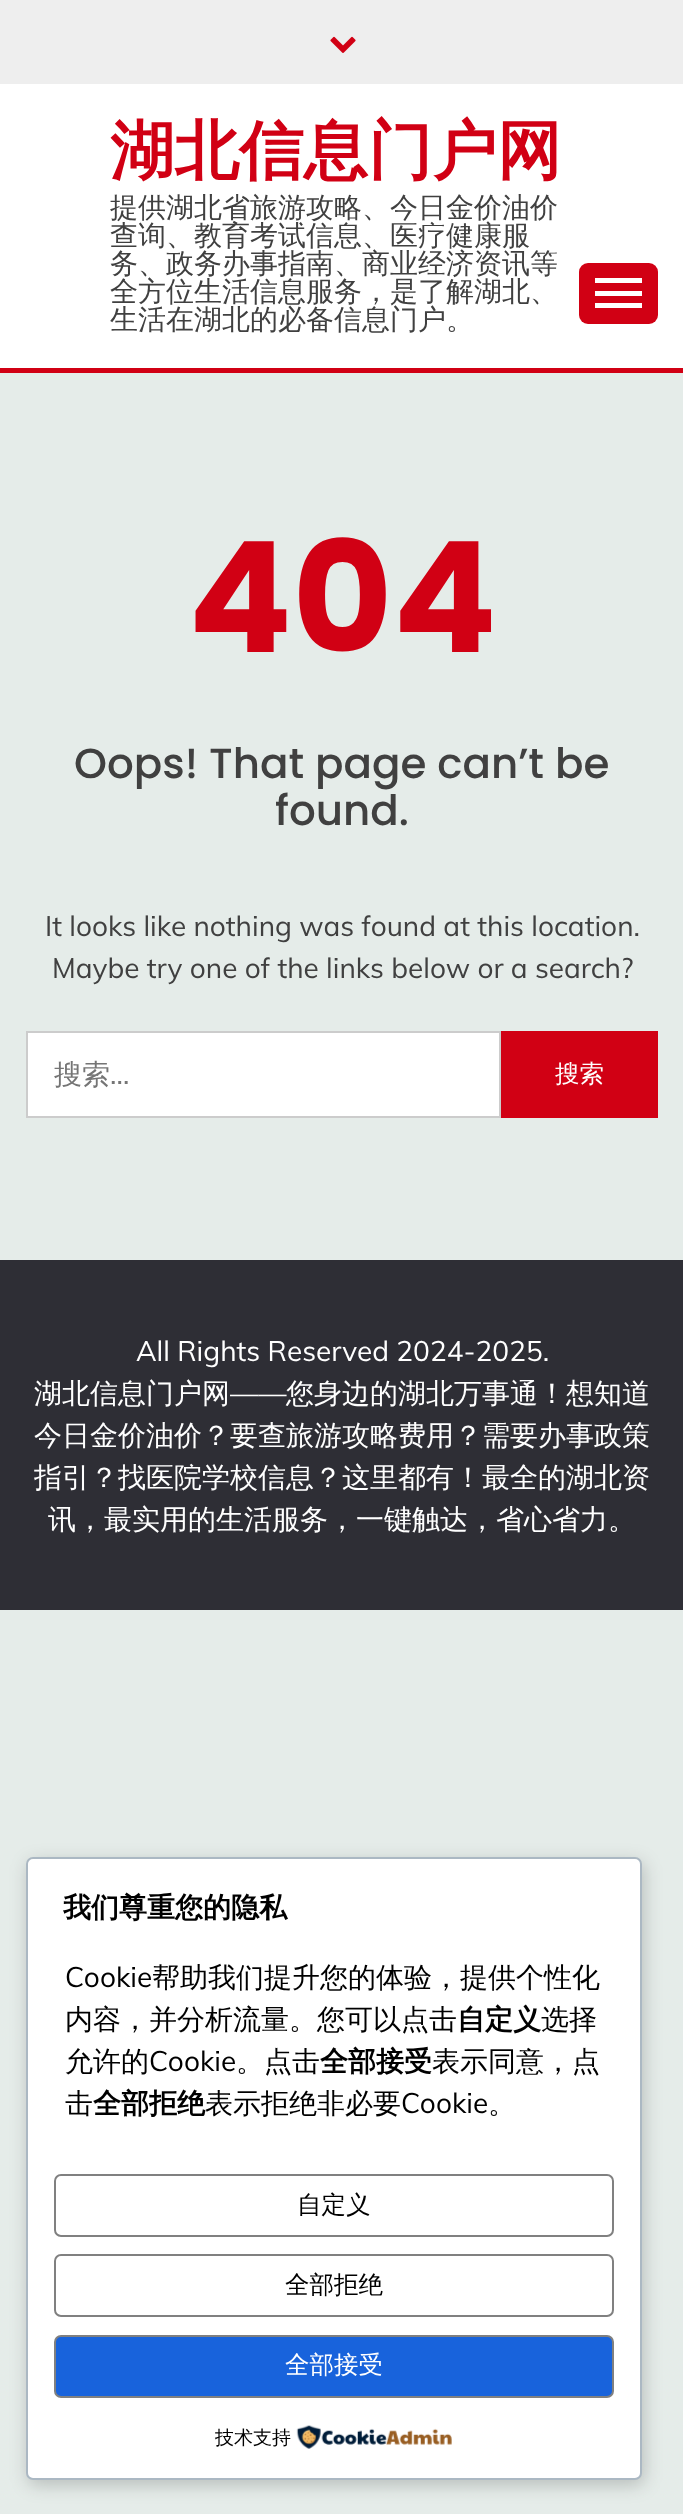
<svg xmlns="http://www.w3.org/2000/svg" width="683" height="2514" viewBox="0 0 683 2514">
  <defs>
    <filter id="blur1" x="-50%" y="-200%" width="200%" height="500%"><feGaussianBlur stdDeviation="9"/></filter>
  </defs>
  <rect width="100%" height="100%" fill="#e5ece9"/>
  <rect x="0" y="84" width="683" height="284" fill="#ffffff"/>
  <rect x="0" y="0" width="683" height="84" fill="#eeeeee"/>
  <image x="330" y="36" width="26" height="17" href="img1.png"/>
  <text x="110" y="173" font-family="WenQuanYi Zen Hei" font-size="64.5" font-weight="bold" fill="#d10014">湖北信息门户网</text>
  <text x="110" y="217" font-family="WenQuanYi Zen Hei" font-size="28" font-weight="500" fill="#404040">提供湖北省旅游攻略、今日金价油价</text>
  <text x="110" y="245" font-family="WenQuanYi Zen Hei" font-size="28" font-weight="500" fill="#404040">查询、教育考试信息、医疗健康服</text>
  <text x="110" y="273" font-family="WenQuanYi Zen Hei" font-size="28" font-weight="500" fill="#404040">务、政务办事指南、商业经济资讯等</text>
  <text x="110" y="301" font-family="WenQuanYi Zen Hei" font-size="28" font-weight="500" fill="#404040">全方位生活信息服务，是了解湖北、</text>
  <text x="110" y="329" font-family="WenQuanYi Zen Hei" font-size="28" font-weight="500" fill="#404040">生活在湖北的必备信息门户。</text>
  <rect x="579" y="263" width="79" height="61" rx="9" fill="#d10014"/>
  <rect x="595" y="278" width="47" height="5" fill="#ffffff"/>
  <rect x="595" y="291" width="47" height="5" fill="#ffffff"/>
  <rect x="595" y="303" width="47" height="5" fill="#ffffff"/>
  <rect x="0" y="368" width="683" height="5" fill="#d10014"/>
  <text x="188" y="652" font-family="Poppins" font-size="154" font-weight="bold" fill="#d10014">404</text>
  <text x="74" y="778" font-family="Poppins" font-size="42" font-weight="500" fill="#404040">Oops! That page can’t be</text>
  <text x="275" y="825" font-family="Poppins" font-size="42" font-weight="500" fill="#404040">found.</text>
  <text x="45" y="936" font-family="Muli" font-size="28" fill="#404040">It looks like nothing was found at this location.</text>
  <text x="52" y="978" font-family="Muli" font-size="28" fill="#404040">Maybe try one of the links below or a search?</text>
  <rect x="27" y="1032" width="473" height="85" fill="#ffffff" stroke="#cccccc" stroke-width="2"/>
  <text x="54" y="1084" font-family="WenQuanYi Zen Hei" font-size="28" font-weight="500" fill="#757575">搜索</text>
  <text x="110" y="1084" font-family="Muli" font-size="28" fill="#757575">…</text>
  <rect x="501" y="1031" width="157" height="87" fill="#d10014"/>
  <text x="555" y="1082" font-family="WenQuanYi Zen Hei" font-size="24.5" font-weight="500" fill="#ffffff">搜索</text>
  <rect x="0" y="1260" width="683" height="350" fill="#2e2e35"/>
  <text x="136" y="1361" font-family="Muli" font-size="28" fill="#ffffff">All Rights Reserved 2024-2025.</text>
  <text x="34" y="1403" font-family="WenQuanYi Zen Hei" font-size="28" font-weight="500" fill="#ffffff">湖北信息门户网</text>
  <text x="230" y="1403" font-family="Muli" font-size="28" fill="#ffffff">——</text>
  <text x="286" y="1403" font-family="WenQuanYi Zen Hei" font-size="28" font-weight="500" fill="#ffffff">您身边的湖北万事通！想知道</text>
  <text x="34" y="1445" font-family="WenQuanYi Zen Hei" font-size="28" font-weight="500" fill="#ffffff">今日金价油价？要查旅游攻略费用？需要办事政策</text>
  <text x="34" y="1487" font-family="WenQuanYi Zen Hei" font-size="28" font-weight="500" fill="#ffffff">指引？找医院学校信息？这里都有！最全的湖北资</text>
  <text x="48" y="1529" font-family="WenQuanYi Zen Hei" font-size="28" font-weight="500" fill="#ffffff">讯，最实用的生活服务，一键触达，省心省力。</text>
  <rect x="28" y="1862" width="616" height="623" rx="7" fill="#000000" fill-opacity="0.2" filter="url(#blur1)"/>
  <rect x="27" y="1858" width="614" height="621" rx="6" fill="#ffffff" stroke="#abb8c3" stroke-width="2"/>
  <text x="63" y="1917" font-family="WenQuanYi Zen Hei" font-size="28" font-weight="bold" fill="#000000">我们尊重您的隐私</text>
  <text x="65" y="1987" font-family="Muli" font-size="28" fill="#000000">Cookie</text>
  <text x="152" y="1987" font-family="WenQuanYi Zen Hei" font-size="28" font-weight="500" fill="#000000">帮助我们提升您的体验，提供个性化</text>
  <text x="65" y="2029" font-family="WenQuanYi Zen Hei" font-size="28" font-weight="500" fill="#000000">内容，并分析流量。您可以点击</text>
  <text x="457" y="2029" font-family="WenQuanYi Zen Hei" font-size="28" font-weight="bold" fill="#000000">自定义</text>
  <text x="541" y="2029" font-family="WenQuanYi Zen Hei" font-size="28" font-weight="500" fill="#000000">选择</text>
  <text x="65" y="2071" font-family="WenQuanYi Zen Hei" font-size="28" font-weight="500" fill="#000000">允许的</text>
  <text x="149" y="2071" font-family="Muli" font-size="28" fill="#000000">Cookie</text>
  <text x="236" y="2071" font-family="WenQuanYi Zen Hei" font-size="28" font-weight="500" fill="#000000">。点击</text>
  <text x="320" y="2071" font-family="WenQuanYi Zen Hei" font-size="28" font-weight="bold" fill="#000000">全部接受</text>
  <text x="432" y="2071" font-family="WenQuanYi Zen Hei" font-size="28" font-weight="500" fill="#000000">表示同意，点</text>
  <text x="65" y="2113" font-family="WenQuanYi Zen Hei" font-size="28" font-weight="500" fill="#000000">击</text>
  <text x="93" y="2113" font-family="WenQuanYi Zen Hei" font-size="28" font-weight="bold" fill="#000000">全部拒绝</text>
  <text x="205" y="2113" font-family="WenQuanYi Zen Hei" font-size="28" font-weight="500" fill="#000000">表示拒绝非必要</text>
  <text x="401" y="2113" font-family="Muli" font-size="28" fill="#000000">Cookie</text>
  <text x="488" y="2113" font-family="WenQuanYi Zen Hei" font-size="28" font-weight="500" fill="#000000">。</text>
  <rect x="55" y="2175" width="558" height="61" rx="6" fill="none" stroke="#808080" stroke-width="2"/>
  <text x="297" y="2213" font-family="WenQuanYi Zen Hei" font-size="24.5" font-weight="500" fill="#000000">自定义</text>
  <rect x="55" y="2255" width="558" height="61" rx="6" fill="none" stroke="#808080" stroke-width="2"/>
  <text x="285" y="2293" font-family="WenQuanYi Zen Hei" font-size="24.5" font-weight="500" fill="#000000">全部拒绝</text>
  <rect x="55" y="2336" width="558" height="61" rx="6" fill="#1863dc" stroke="#808080" stroke-width="2"/>
  <text x="285" y="2373" font-family="WenQuanYi Zen Hei" font-size="24.5" font-weight="500" fill="#ffffff">全部接受</text>
  <text x="215" y="2444" font-family="WenQuanYi Zen Hei" font-size="19" font-weight="500" fill="#000000">技术支持</text>
  <image x="296" y="2425" width="156" height="24" href="img2.png"/>
</svg>
